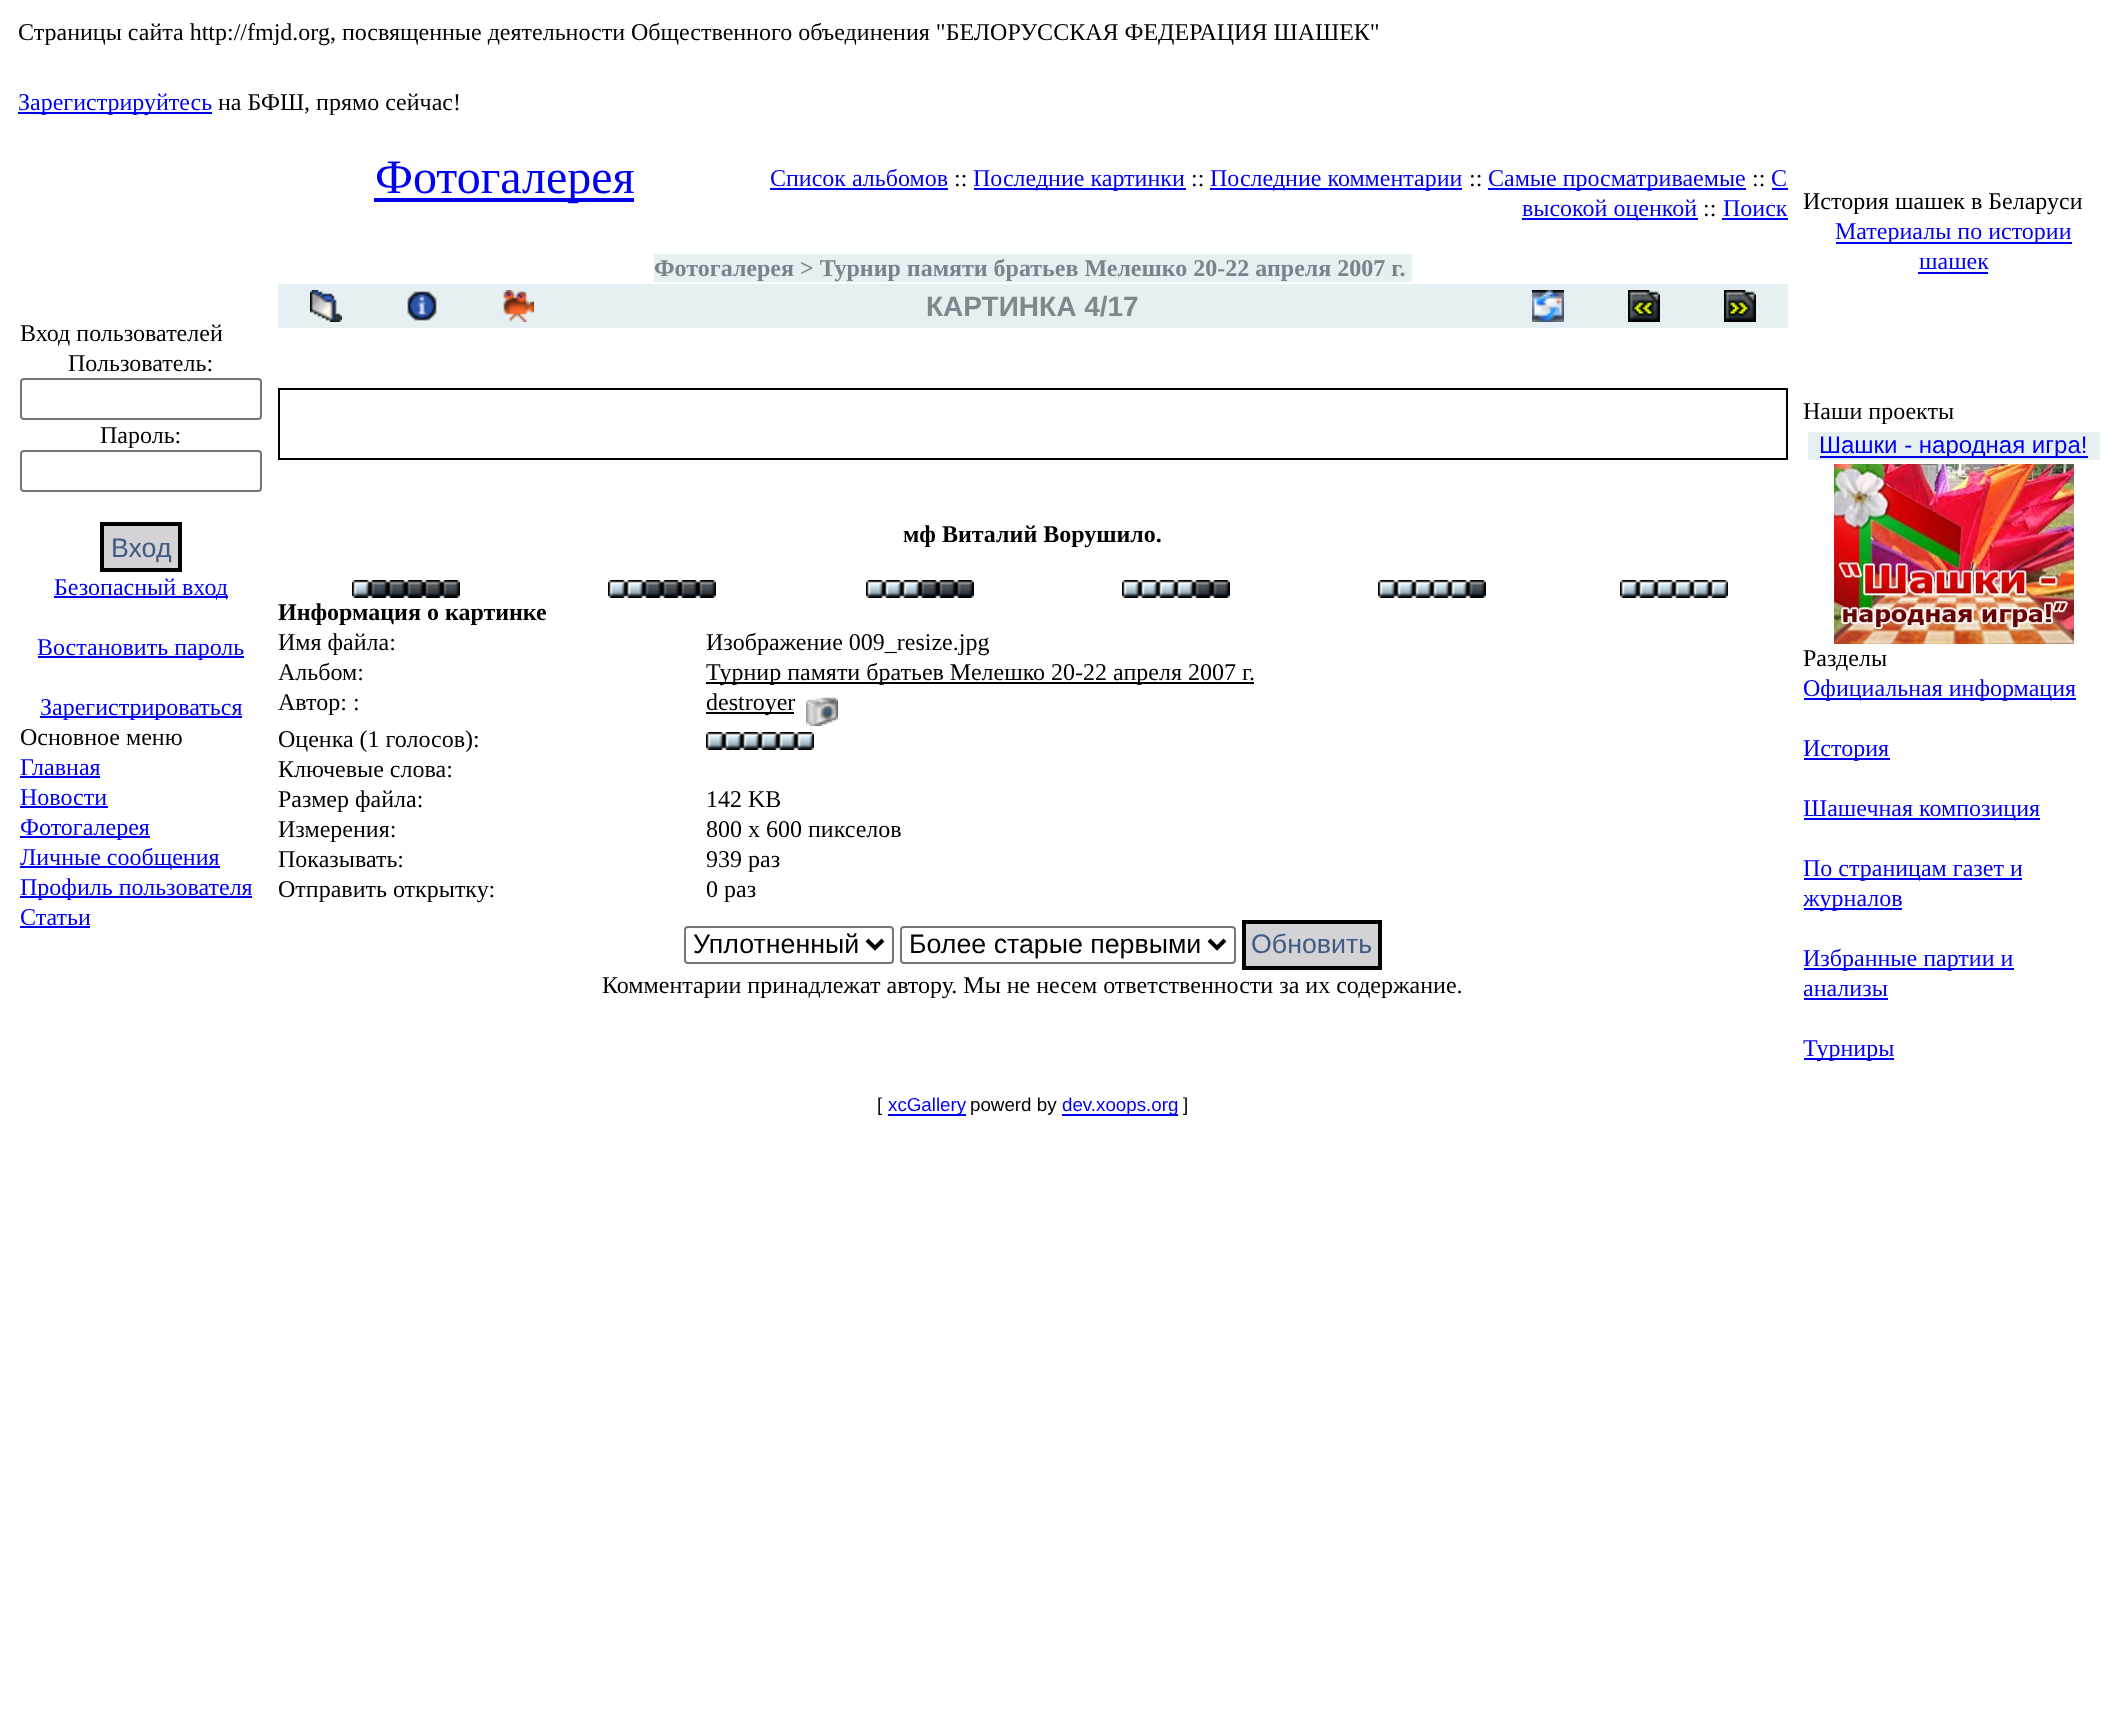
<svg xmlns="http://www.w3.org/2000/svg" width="2124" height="1714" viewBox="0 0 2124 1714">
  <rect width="100%" height="100%" fill="#ffffff"/>
  <text x="18" y="40" font-family="Liberation Serif" font-size="24" fill="#000000">Страницы сайта http://fmjd.org, посвященные деятельности Общественного объединения "БЕЛОРУССКАЯ ФЕДЕРАЦИЯ ШАШЕК"</text>
  <rect x="18" y="112" width="194" height="2" fill="#0000ee"/>
  <text x="18" y="110" font-family="Liberation Serif" font-size="24" fill="#0000ee">Зарегистрируйтесь</text>
  <text x="218" y="110" font-family="Liberation Serif" font-size="24" fill="#000000">на БФШ, прямо сейчас!</text>
  <text x="20" y="341" font-family="Liberation Serif" font-size="24" fill="#000000">Вход пользователей</text>
  <text x="68" y="371" font-family="Liberation Serif" font-size="24" fill="#000000">Пользователь:</text>
  <rect x="21" y="379" width="240" height="40" rx="3" fill="none" stroke="#767676" stroke-width="2"/>
  <text x="100" y="443" font-family="Liberation Serif" font-size="24" fill="#000000">Пароль:</text>
  <rect x="21" y="451" width="240" height="40" rx="3" fill="none" stroke="#767676" stroke-width="2"/>
  <rect x="102" y="524" width="78" height="46" fill="#d3d2d6" stroke="#000000" stroke-width="4"/>
  <text x="111" y="557" font-family="Liberation Sans" font-size="26.75" fill="#405a80">Вход</text>
  <rect x="54" y="596" width="174" height="2" fill="#0000ee"/>
  <text x="54" y="595" font-family="Liberation Serif" font-size="24" fill="#0000ee">Безопасный вход</text>
  <rect x="38" y="656" width="206" height="2" fill="#0000ee"/>
  <text x="37" y="655" font-family="Liberation Serif" font-size="24" fill="#0000ee">Востановить пароль</text>
  <rect x="40" y="716" width="202" height="2" fill="#0000ee"/>
  <text x="40" y="715" font-family="Liberation Serif" font-size="24" fill="#0000ee">Зарегистрироваться</text>
  <text x="20" y="745" font-family="Liberation Serif" font-size="24" fill="#000000">Основное меню</text>
  <text x="20" y="775" font-family="Liberation Serif" font-size="24" fill="#0000ee">Главная</text>
  <rect x="20" y="776" width="80" height="2" fill="#0000ee"/>
  <text x="20" y="805" font-family="Liberation Serif" font-size="24" fill="#0000ee">Новости</text>
  <rect x="20" y="806" width="88" height="2" fill="#0000ee"/>
  <rect x="20" y="836" width="130" height="2" fill="#0000ee"/>
  <text x="20" y="835" font-family="Liberation Serif" font-size="24" fill="#0000ee">Фотогалерея</text>
  <rect x="20" y="866" width="200" height="2" fill="#0000ee"/>
  <text x="20" y="865" font-family="Liberation Serif" font-size="24" fill="#0000ee">Личные сообщения</text>
  <rect x="20" y="896" width="232" height="2" fill="#0000ee"/>
  <text x="20" y="895" font-family="Liberation Serif" font-size="24" fill="#0000ee">Профиль пользователя</text>
  <text x="20" y="925" font-family="Liberation Serif" font-size="24" fill="#0000ee">Статьи</text>
  <rect x="20" y="926" width="70" height="2" fill="#0000ee"/>
  <rect x="374" y="198" width="260" height="4" fill="#0000ee"/>
  <text x="375" y="193" font-family="Liberation Serif" font-size="48" fill="#0000ee">Фотогалерея</text>
  <text x="770" y="186" font-family="Liberation Serif" font-size="24" fill="#0000ee">Список альбомов</text>
  <rect x="770" y="188" width="178" height="2" fill="#0000ee"/>
  <text x="954" y="186" font-family="Liberation Serif" font-size="24" fill="#000000">::</text>
  <rect x="974" y="188" width="212" height="2" fill="#0000ee"/>
  <text x="973" y="186" font-family="Liberation Serif" font-size="24" fill="#0000ee">Последние картинки</text>
  <text x="1191" y="186" font-family="Liberation Serif" font-size="24" fill="#000000">::</text>
  <rect x="1210" y="188" width="252" height="2" fill="#0000ee"/>
  <text x="1210" y="186" font-family="Liberation Serif" font-size="24" fill="#0000ee">Последние комментарии</text>
  <text x="1469" y="186" font-family="Liberation Serif" font-size="24" fill="#000000">::</text>
  <rect x="1488" y="188" width="258" height="2" fill="#0000ee"/>
  <text x="1488" y="186" font-family="Liberation Serif" font-size="24" fill="#0000ee">Самые просматриваемые</text>
  <text x="1752" y="186" font-family="Liberation Serif" font-size="24" fill="#000000">::</text>
  <text x="1771" y="186" font-family="Liberation Serif" font-size="24" fill="#0000ee">С</text>
  <rect x="1772" y="188" width="16" height="2" fill="#0000ee"/>
  <rect x="1522" y="218" width="176" height="2" fill="#0000ee"/>
  <text x="1522" y="216" font-family="Liberation Serif" font-size="24" fill="#0000ee">высокой оценкой</text>
  <text x="1703" y="216" font-family="Liberation Serif" font-size="24" fill="#000000">::</text>
  <text x="1723" y="216" font-family="Liberation Serif" font-size="24" fill="#0000ee">Поиск</text>
  <rect x="1722" y="218" width="66" height="2" fill="#0000ee"/>
  <rect x="654" y="254" width="758" height="28" fill="#e6eff2"/>
  <text x="654" y="276" font-family="Liberation Serif" font-size="24" font-weight="bold" fill="#7d818a">Фотогалерея &gt; Турнир памяти братьев Мелешко 20-22 апреля 2007 г.</text>
  <rect x="278" y="284" width="1510" height="44" fill="#e6eff2"/>
  <image x="310" y="290" width="32" height="32" href="img1.png"/>
  <image x="407" y="291" width="30" height="30" href="img2.png"/>
  <image x="503" y="290" width="31" height="32" href="img3.png"/>
  <text x="926" y="316" font-family="Liberation Sans" font-size="28" font-weight="bold" fill="#7e898d">КАРТИНКА 4/17</text>
  <image x="1532" y="290" width="32" height="32" href="img4.png"/>
  <image x="1628" y="290" width="32" height="32" href="img5.png"/>
  <image x="1724" y="290" width="32" height="32" href="img6.png"/>
  <rect x="278" y="388" width="1510" height="2" fill="#000000"/>
  <rect x="1786" y="388" width="2" height="72" fill="#000000"/>
  <rect x="278" y="458" width="1510" height="2" fill="#000000"/>
  <rect x="278" y="388" width="2" height="72" fill="#000000"/>
  <text x="903" y="542" font-family="Liberation Serif" font-size="24" font-weight="bold" fill="#000000">мф Виталий Ворушило.</text>
  <image x="352" y="580" width="108" height="18" href="img7.png"/>
  <image x="608" y="580" width="108" height="18" href="img8.png"/>
  <image x="866" y="580" width="108" height="18" href="img9.png"/>
  <image x="1122" y="580" width="108" height="18" href="img10.png"/>
  <image x="1378" y="580" width="108" height="18" href="img11.png"/>
  <image x="1620" y="580" width="108" height="18" href="img12.png"/>
  <text x="278" y="620" font-family="Liberation Serif" font-size="24" font-weight="bold" fill="#000000">Информация о картинке</text>
  <text x="278" y="650" font-family="Liberation Serif" font-size="24" fill="#000000">Имя файла:</text>
  <text x="706" y="650" font-family="Liberation Serif" font-size="24" fill="#000000">Изображение 009_resize.jpg</text>
  <text x="278" y="680" font-family="Liberation Serif" font-size="24" fill="#000000">Альбом:</text>
  <rect x="706" y="682" width="548" height="2" fill="#000000"/>
  <text x="706" y="680" font-family="Liberation Serif" font-size="24" fill="#000000">Турнир памяти братьев Мелешко 20-22 апреля 2007 г.</text>
  <text x="278" y="710" font-family="Liberation Serif" font-size="24" fill="#000000">Автор: :</text>
  <rect x="706" y="712" width="88" height="2" fill="#000000"/>
  <text x="706" y="710" font-family="Liberation Serif" font-size="24" fill="#000000">destroyer</text>
  <image x="806" y="697" width="32" height="29" href="img13.png"/>
  <text x="278" y="747" font-family="Liberation Serif" font-size="24" fill="#000000">Оценка (1 голосов):</text>
  <image x="706" y="732" width="108" height="18" href="img12.png"/>
  <text x="278" y="777" font-family="Liberation Serif" font-size="24" fill="#000000">Ключевые слова:</text>
  <text x="278" y="807" font-family="Liberation Serif" font-size="24" fill="#000000">Размер файла:</text>
  <text x="706" y="807" font-family="Liberation Serif" font-size="24" fill="#000000">142 KB</text>
  <text x="278" y="837" font-family="Liberation Serif" font-size="24" fill="#000000">Измерения:</text>
  <text x="706" y="837" font-family="Liberation Serif" font-size="24" fill="#000000">800 x 600 пикселов</text>
  <text x="278" y="867" font-family="Liberation Serif" font-size="24" fill="#000000">Показывать:</text>
  <text x="706" y="867" font-family="Liberation Serif" font-size="24" fill="#000000">939 раз</text>
  <text x="278" y="897" font-family="Liberation Serif" font-size="24" fill="#000000">Отправить открытку:</text>
  <text x="706" y="897" font-family="Liberation Serif" font-size="24" fill="#000000">0 раз</text>
  <rect x="685" y="927" width="208" height="36" rx="3" fill="none" stroke="#767676" stroke-width="2"/>
  <path d="M867 940L875 948L883 940" fill="none" stroke="#000000" stroke-width="4"/>
  <text x="693" y="953" font-family="Liberation Sans" font-size="26.75" fill="#000000">Уплотненный</text>
  <rect x="901" y="927" width="334" height="36" rx="3" fill="none" stroke="#767676" stroke-width="2"/>
  <path d="M1209 940L1217 948L1225 940" fill="none" stroke="#000000" stroke-width="4"/>
  <text x="909" y="953" font-family="Liberation Sans" font-size="26.75" fill="#000000">Более старые первыми</text>
  <rect x="1244" y="922" width="136" height="46" fill="#d3d2d6" stroke="#000000" stroke-width="4"/>
  <text x="1251" y="953" font-family="Liberation Sans" font-size="26.75" fill="#405a80">Обновить</text>
  <text x="602" y="993" font-family="Liberation Serif" font-size="24" fill="#000000">Комментарии принадлежат автору. Мы не несем ответственности за их содержание.</text>
  <text x="877" y="1111" font-family="Liberation Sans" font-size="18.75" fill="#000000">[</text>
  <rect x="888" y="1114" width="78" height="2" fill="#0000ee"/>
  <text x="888" y="1111" font-family="Liberation Sans" font-size="18.75" fill="#0000ee">xcGallery</text>
  <text x="970" y="1111" font-family="Liberation Sans" font-size="18.75" fill="#000000">powerd by</text>
  <rect x="1062" y="1114" width="116" height="2" fill="#0000ee"/>
  <text x="1062" y="1111" font-family="Liberation Sans" font-size="18.75" fill="#0000ee">dev.xoops.org</text>
  <text x="1183" y="1111" font-family="Liberation Sans" font-size="18.75" fill="#000000">]</text>
  <text x="1803" y="209" font-family="Liberation Serif" font-size="24" fill="#000000">История шашек в Беларуси</text>
  <rect x="1836" y="242" width="236" height="2" fill="#0000ee"/>
  <text x="1835" y="239" font-family="Liberation Serif" font-size="24" fill="#0000ee">Материалы по истории</text>
  <text x="1919" y="269" font-family="Liberation Serif" font-size="24" fill="#0000ee">шашек</text>
  <rect x="1918" y="272" width="70" height="2" fill="#0000ee"/>
  <text x="1803" y="419" font-family="Liberation Serif" font-size="24" fill="#000000">Наши проекты</text>
  <rect x="1808" y="432" width="292" height="28" fill="#e6eff2"/>
  <rect x="1820" y="456" width="268" height="2" fill="#0000ee"/>
  <text x="1819" y="453" font-family="Liberation Sans" font-size="24" fill="#0000ee">Шашки - народная игра!</text>
  <image x="1834" y="464" width="240" height="180" href="img14.png"/>
  <text x="1803" y="666" font-family="Liberation Serif" font-size="24" fill="#000000">Разделы</text>
  <rect x="1804" y="698" width="272" height="2" fill="#0000ee"/>
  <text x="1803" y="696" font-family="Liberation Serif" font-size="24" fill="#0000ee">Официальная информация</text>
  <rect x="1804" y="758" width="86" height="2" fill="#0000ee"/>
  <text x="1803" y="756" font-family="Liberation Serif" font-size="24" fill="#0000ee">История</text>
  <rect x="1804" y="818" width="236" height="2" fill="#0000ee"/>
  <text x="1803" y="816" font-family="Liberation Serif" font-size="24" fill="#0000ee">Шашечная композиция</text>
  <rect x="1804" y="878" width="218" height="2" fill="#0000ee"/>
  <text x="1803" y="876" font-family="Liberation Serif" font-size="24" fill="#0000ee">По страницам газет и</text>
  <rect x="1804" y="908" width="98" height="2" fill="#0000ee"/>
  <text x="1803" y="906" font-family="Liberation Serif" font-size="24" fill="#0000ee">журналов</text>
  <rect x="1804" y="968" width="210" height="2" fill="#0000ee"/>
  <text x="1803" y="966" font-family="Liberation Serif" font-size="24" fill="#0000ee">Избранные партии и</text>
  <text x="1803" y="996" font-family="Liberation Serif" font-size="24" fill="#0000ee">анализы</text>
  <rect x="1804" y="998" width="84" height="2" fill="#0000ee"/>
  <rect x="1804" y="1058" width="90" height="2" fill="#0000ee"/>
  <text x="1803" y="1056" font-family="Liberation Serif" font-size="24" fill="#0000ee">Турниры</text>
</svg>
